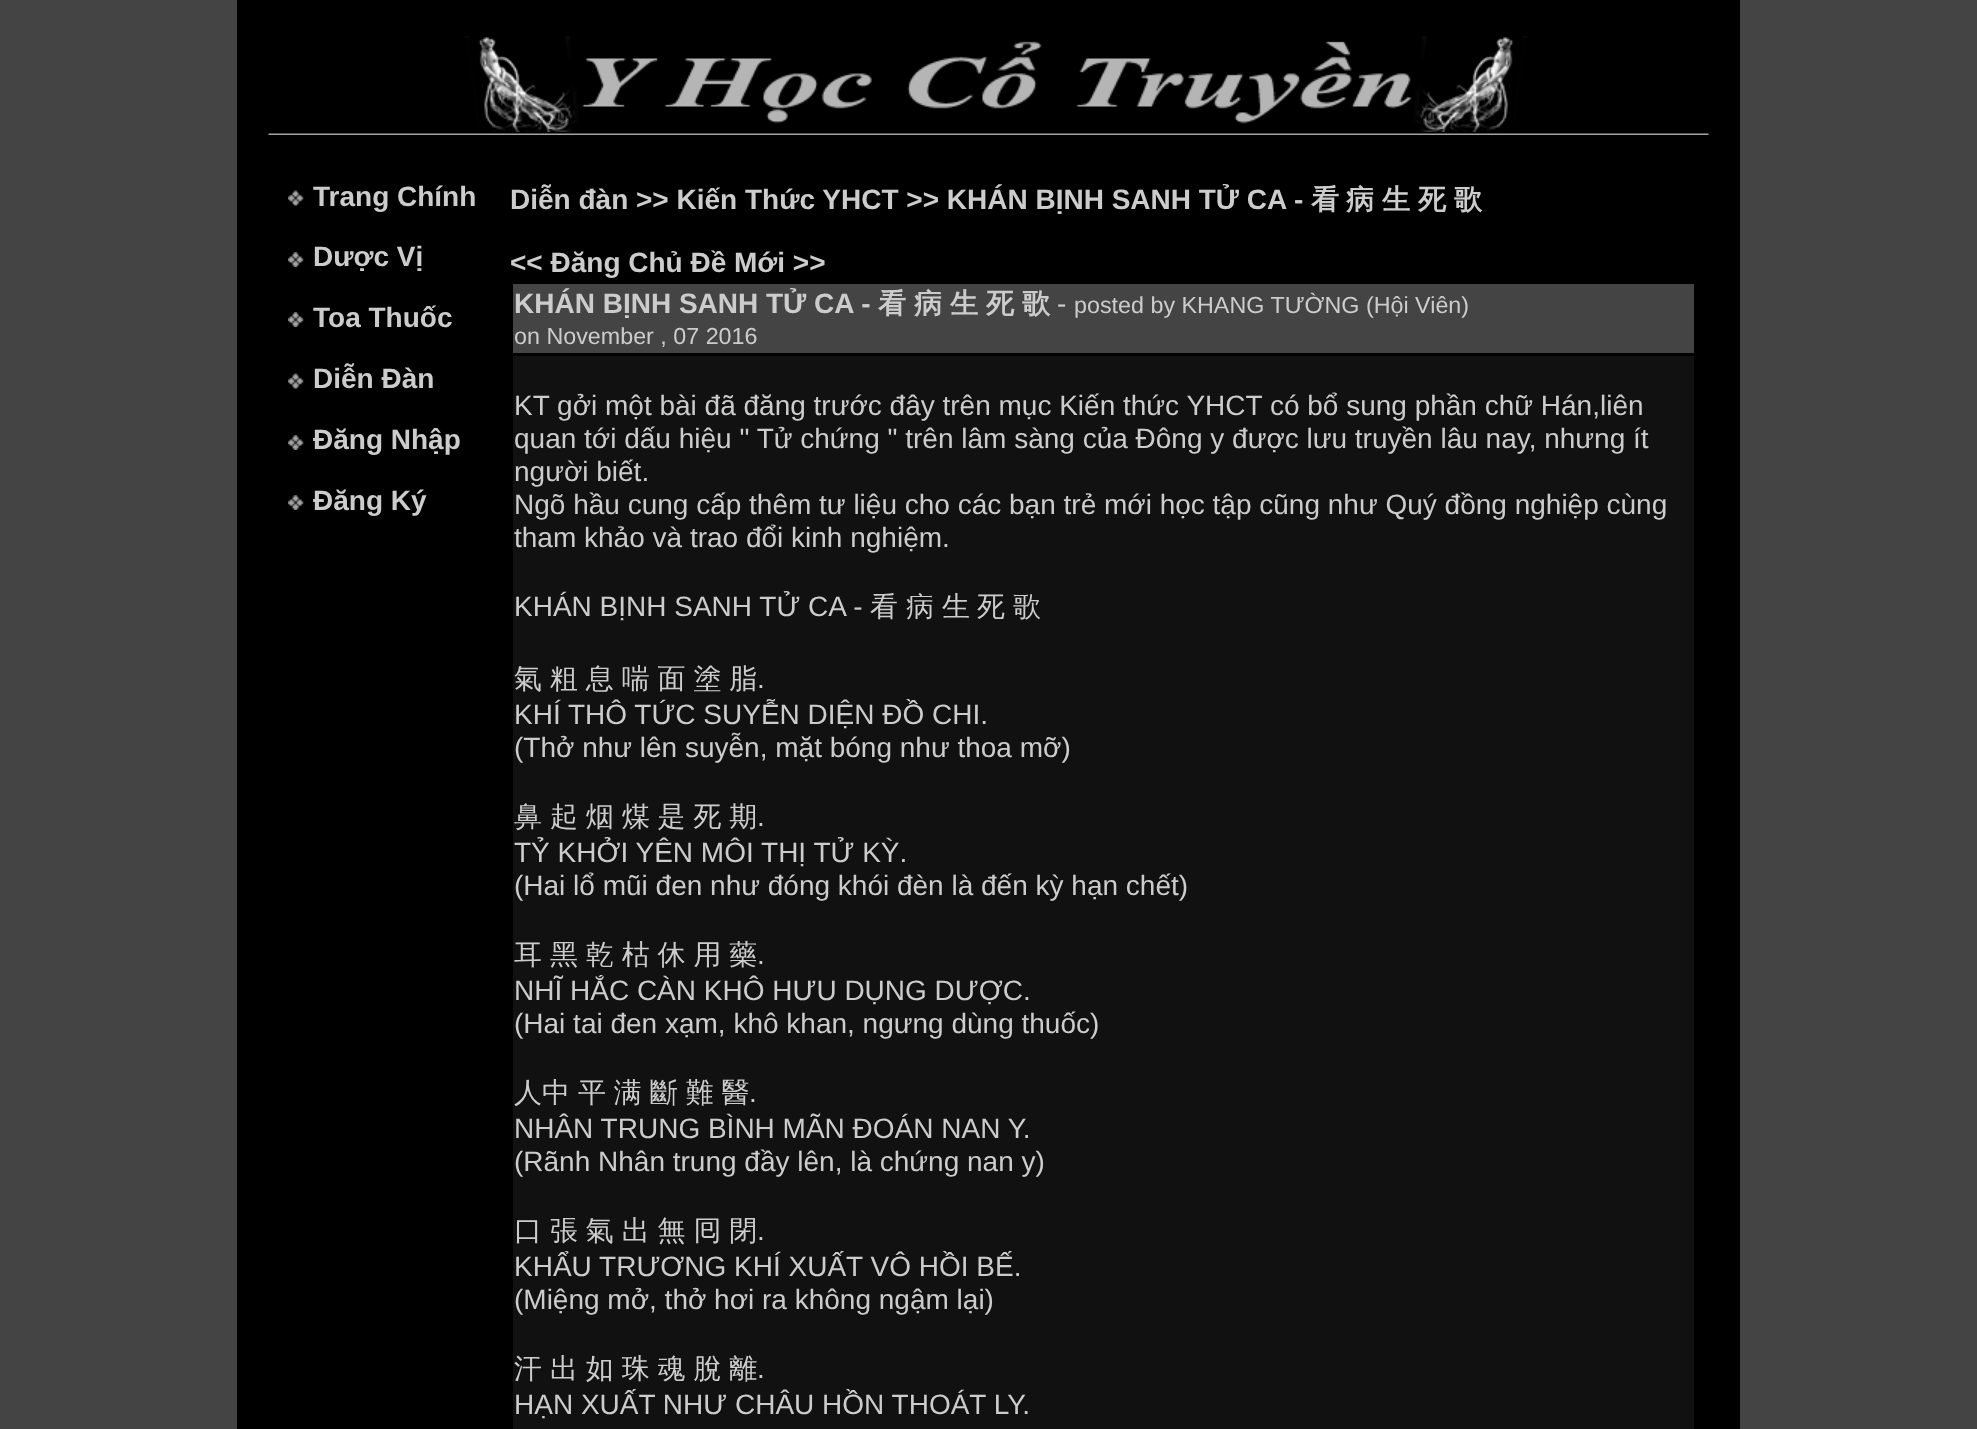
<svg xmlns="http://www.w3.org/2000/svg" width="1977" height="1429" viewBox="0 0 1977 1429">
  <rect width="100%" height="100%" fill="#000000"/>
  <rect x="0" y="0" width="237" height="1429" fill="#444444"/>
  <image x="465" y="36" width="1062" height="96" href="img1.png"/>
  <image x="268" y="133" width="1441" height="2" href="img2.png"/>
  <image x="288" y="190" width="16" height="16" href="img3.png"/>
  <text x="313" y="206" font-family="Liberation Sans" font-size="28" font-weight="bold" fill="#cccccc">Trang Chính</text>
  <image x="288" y="252" width="17" height="15" href="img4.png"/>
  <text x="313" y="266" font-family="Liberation Sans" font-size="28" font-weight="bold" fill="#cccccc">Dược Vị</text>
  <image x="288" y="312" width="17" height="15" href="img4.png"/>
  <text x="313" y="327" font-family="Liberation Sans" font-size="28" font-weight="bold" fill="#cccccc">Toa Thuốc</text>
  <image x="288" y="373" width="16" height="16" href="img3.png"/>
  <text x="313" y="388" font-family="Liberation Sans" font-size="28" font-weight="bold" fill="#cccccc">Diễn Đàn</text>
  <image x="288" y="435" width="17" height="15" href="img4.png"/>
  <text x="313" y="449" font-family="Liberation Sans" font-size="28" font-weight="bold" fill="#cccccc">Đăng Nhập</text>
  <image x="288" y="495" width="17" height="15" href="img4.png"/>
  <text x="313" y="510" font-family="Liberation Sans" font-size="28" font-weight="bold" fill="#cccccc">Đăng Ký</text>
  <text x="510" y="209" font-family="Liberation Sans" font-size="28" font-weight="bold" fill="#cccccc">Diễn đàn &gt;&gt; Kiến Thức YHCT &gt;&gt; KHÁN BỊNH SANH TỬ CA -</text>
  <text x="1311" y="209" font-family="WenQuanYi Zen Hei" font-size="28" font-weight="bold" fill="#cccccc">看</text>
  <text x="1346" y="209" font-family="WenQuanYi Zen Hei" font-size="28" font-weight="bold" fill="#cccccc">病</text>
  <text x="1382" y="209" font-family="WenQuanYi Zen Hei" font-size="28" font-weight="bold" fill="#cccccc">生</text>
  <text x="1418" y="209" word-spacing="-0.5" font-family="WenQuanYi Zen Hei" font-size="28" font-weight="bold" fill="#cccccc">死 歌</text>
  <text x="510" y="272" font-family="Liberation Sans" font-size="28" font-weight="bold" fill="#cccccc">&lt;&lt; Đăng Chủ Đề Mới &gt;&gt;</text>
  <rect x="513" y="284" width="1181" height="69" fill="#444444"/>
  <text x="514" y="313" font-family="Liberation Sans" font-size="28" font-weight="bold" fill="#cccccc">KHÁN BỊNH SANH TỬ CA -</text>
  <text x="878" y="313" font-family="WenQuanYi Zen Hei" font-size="28" font-weight="bold" fill="#cccccc">看</text>
  <text x="914" y="313" font-family="WenQuanYi Zen Hei" font-size="28" font-weight="bold" fill="#cccccc">病</text>
  <text x="950" y="313" font-family="WenQuanYi Zen Hei" font-size="28" font-weight="bold" fill="#cccccc">生</text>
  <text x="986" y="313" word-spacing="-0.5" font-family="WenQuanYi Zen Hei" font-size="28" font-weight="bold" fill="#cccccc">死 歌</text>
  <text x="1057" y="313" font-family="Liberation Sans" font-size="28" fill="#cccccc">-</text>
  <text x="1074" y="313" font-family="Liberation Sans" font-size="23.3" fill="#cccccc">posted by KHANG TƯỜNG (Hội Viên)</text>
  <text x="514" y="344" font-family="Liberation Sans" font-size="23.3" fill="#cccccc">on November , 07 2016</text>
  <rect x="513" y="356" width="1181" height="1073" fill="#111111"/>
  <text x="514" y="415" font-family="Liberation Sans" font-size="28" fill="#cccccc">KT gởi một bài đã đăng trước đây trên mục Kiến thức YHCT có bổ sung phần chữ Hán,liên</text>
  <text x="514" y="448" font-family="Liberation Sans" font-size="28" fill="#cccccc">quan tới dấu hiệu " Tử chứng " trên lâm sàng của Đông y được lưu truyền lâu nay, nhưng ít</text>
  <text x="514" y="481" font-family="Liberation Sans" font-size="28" fill="#cccccc">người biết.</text>
  <text x="514" y="514" font-family="Liberation Sans" font-size="28" fill="#cccccc">Ngõ hầu cung cấp thêm tư liệu cho các bạn trẻ mới học tập cũng như Quý đồng nghiệp cùng</text>
  <text x="514" y="547" font-family="Liberation Sans" font-size="28" fill="#cccccc">tham khảo và trao đổi kinh nghiệm.</text>
  <text x="514" y="616" font-family="Liberation Sans" font-size="28" fill="#cccccc">KHÁN BỊNH SANH TỬ CA -</text>
  <text x="870" y="616" font-family="WenQuanYi Zen Hei" font-size="28" font-weight="500" fill="#cccccc">看</text>
  <text x="906" y="616" font-family="WenQuanYi Zen Hei" font-size="28" font-weight="500" fill="#cccccc">病</text>
  <text x="942" y="616" font-family="WenQuanYi Zen Hei" font-size="28" font-weight="500" fill="#cccccc">生</text>
  <text x="977" y="616" word-spacing="-0.5" font-family="WenQuanYi Zen Hei" font-size="28" font-weight="500" fill="#cccccc">死 歌</text>
  <text x="514" y="688" word-spacing="-0.5" font-family="WenQuanYi Zen Hei" font-size="28" font-weight="500" fill="#cccccc">氣 粗 息 喘 面 塗 脂</text>
  <text x="757" y="688" font-family="Liberation Sans" font-size="28" fill="#cccccc">.</text>
  <text x="514" y="724" font-family="Liberation Sans" font-size="28" fill="#cccccc">KHÍ THÔ TỨC SUYỄN DIỆN ĐỒ CHI.</text>
  <text x="514" y="757" font-family="Liberation Sans" font-size="28" fill="#cccccc">(Thở như lên suyễn, mặt bóng như thoa mỡ)</text>
  <text x="514" y="826" word-spacing="-0.5" font-family="WenQuanYi Zen Hei" font-size="28" font-weight="500" fill="#cccccc">鼻 起 烟 煤 是 死 期</text>
  <text x="757" y="826" font-family="Liberation Sans" font-size="28" fill="#cccccc">.</text>
  <text x="514" y="862" font-family="Liberation Sans" font-size="28" fill="#cccccc">TỶ KHỞI YÊN MÔI THỊ TỬ KỲ.</text>
  <text x="514" y="895" font-family="Liberation Sans" font-size="28" fill="#cccccc">(Hai lổ mũi đen như đóng khói đèn là đến kỳ hạn chết)</text>
  <text x="514" y="964" word-spacing="-0.5" font-family="WenQuanYi Zen Hei" font-size="28" font-weight="500" fill="#cccccc">耳 黑 乾 枯 休 用 藥</text>
  <text x="757" y="964" font-family="Liberation Sans" font-size="28" fill="#cccccc">.</text>
  <text x="514" y="1000" font-family="Liberation Sans" font-size="28" fill="#cccccc">NHĨ HẮC CÀN KHÔ HƯU DỤNG DƯỢC.</text>
  <text x="514" y="1033" font-family="Liberation Sans" font-size="28" fill="#cccccc">(Hai tai đen xạm, khô khan, ngưng dùng thuốc)</text>
  <text x="514" y="1102" word-spacing="-0.5" font-family="WenQuanYi Zen Hei" font-size="28" font-weight="500" fill="#cccccc">人中 平 满 斷 難 醫</text>
  <text x="749" y="1102" font-family="Liberation Sans" font-size="28" fill="#cccccc">.</text>
  <text x="514" y="1138" font-family="Liberation Sans" font-size="28" fill="#cccccc">NHÂN TRUNG BÌNH MÃN ĐOÁN NAN Y.</text>
  <text x="514" y="1171" font-family="Liberation Sans" font-size="28" fill="#cccccc">(Rãnh Nhân trung đầy lên, là chứng nan y)</text>
  <text x="514" y="1240" word-spacing="-0.5" font-family="WenQuanYi Zen Hei" font-size="28" font-weight="500" fill="#cccccc">口 張 氣 出 無 囘 閉</text>
  <text x="757" y="1240" font-family="Liberation Sans" font-size="28" fill="#cccccc">.</text>
  <text x="514" y="1276" font-family="Liberation Sans" font-size="28" fill="#cccccc">KHẨU TRƯƠNG KHÍ XUẤT VÔ HỒI BẾ.</text>
  <text x="514" y="1309" font-family="Liberation Sans" font-size="28" fill="#cccccc">(Miệng mở, thở hơi ra không ngậm lại)</text>
  <text x="514" y="1378" word-spacing="-0.5" font-family="WenQuanYi Zen Hei" font-size="28" font-weight="500" fill="#cccccc">汗 出 如 珠 魂 脫 離</text>
  <text x="757" y="1378" font-family="Liberation Sans" font-size="28" fill="#cccccc">.</text>
  <text x="514" y="1414" font-family="Liberation Sans" font-size="28" fill="#cccccc">HẠN XUẤT NHƯ CHÂU HỒN THOÁT LY.</text>
  <rect x="1740" y="0" width="237" height="1429" fill="#444444"/>
</svg>
